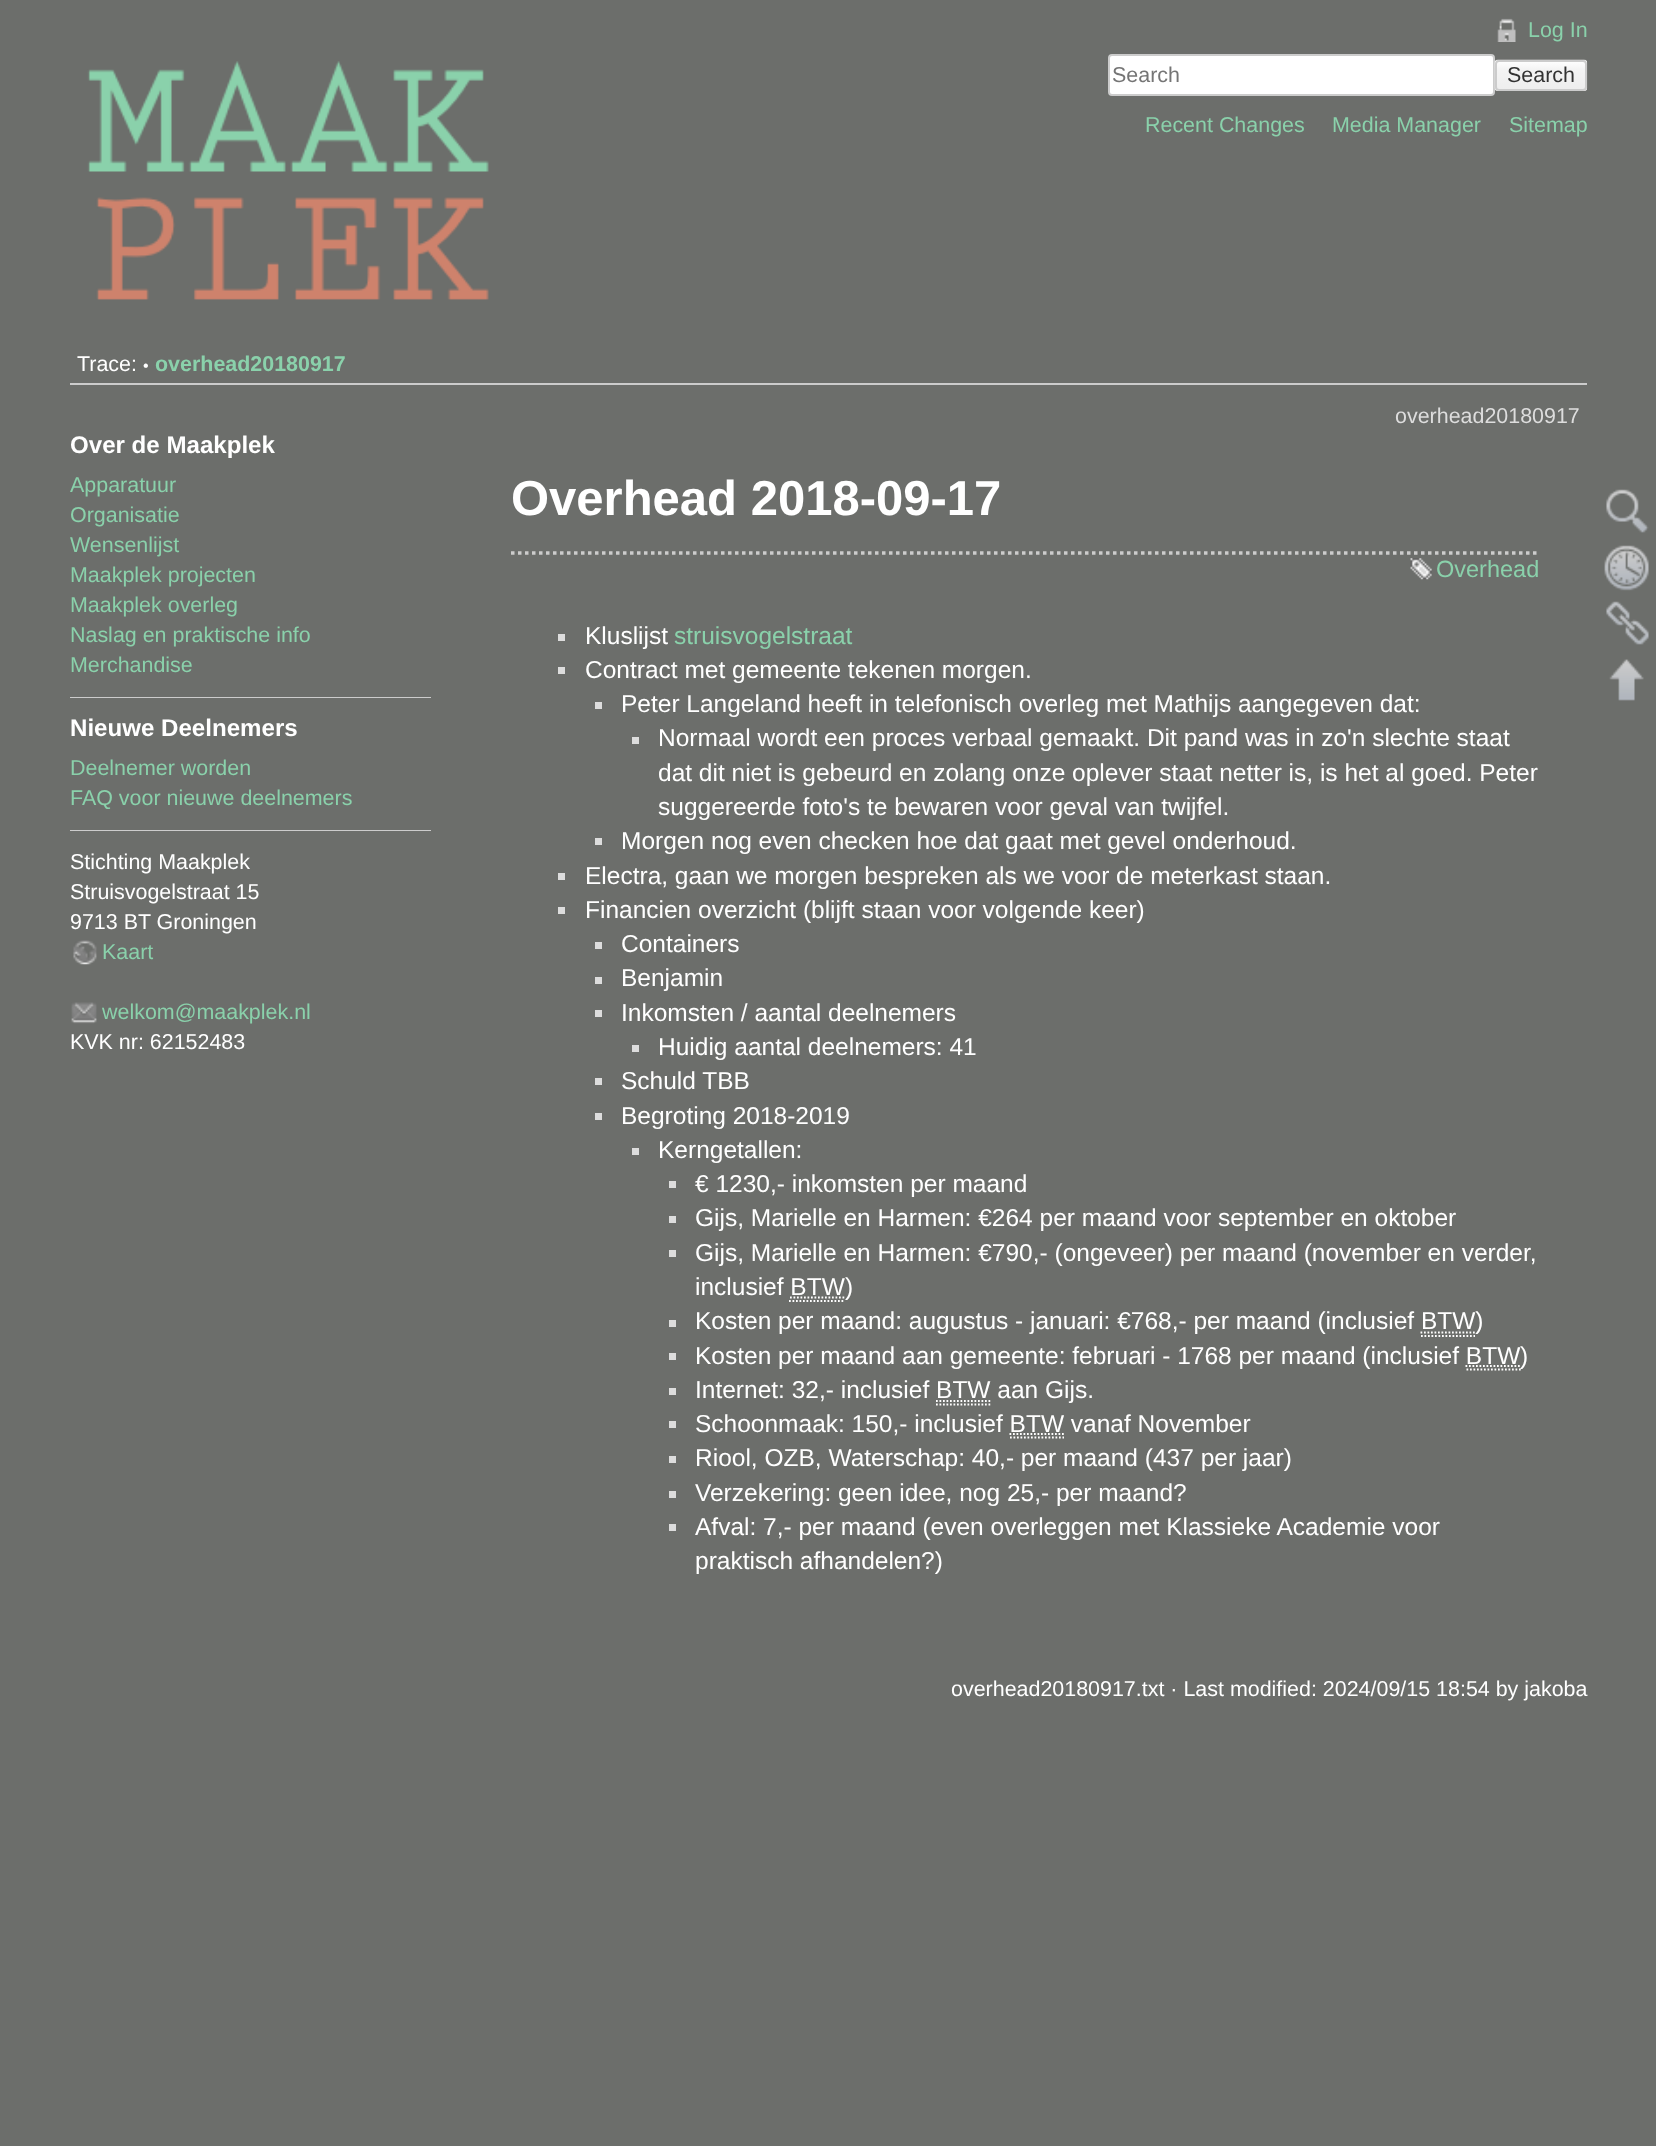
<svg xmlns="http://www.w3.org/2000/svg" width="1656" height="2146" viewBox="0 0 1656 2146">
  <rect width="100%" height="100%" fill="#6c6e6b"/>
  <image x="87" y="61" width="402" height="239" href="img1.png"/>
  <image x="1497" y="18" width="19" height="24" href="img2.png"/>
  <text x="1528" y="37" font-family="Liberation Sans" font-size="21.45" fill="#8ad1ab">Log In</text>
  <rect x="1109" y="55" width="385" height="40" rx="3" fill="#ffffff" stroke="#cccccc" stroke-width="2"/>
  <text x="1112" y="82" font-family="Liberation Sans" font-size="21.45" fill="#757575">Search</text>
  <image x="1494" y="59" width="94" height="32" href="img3.png"/>
  <rect x="1496" y="61" width="90" height="29" rx="3" fill="none" stroke="#cccccc" stroke-width="2"/>
  <text x="1507" y="82" font-family="Liberation Sans" font-size="21.45" fill="#333333">Search</text>
  <text x="1145" y="132" font-family="Liberation Sans" font-size="21.45" fill="#8ad1ab">Recent Changes</text>
  <text x="1332" y="132" font-family="Liberation Sans" font-size="21.45" fill="#8ad1ab">Media Manager</text>
  <text x="1509" y="132" font-family="Liberation Sans" font-size="21.45" fill="#8ad1ab">Sitemap</text>
  <rect x="70" y="383" width="1517" height="2" fill="#cccccc"/>
  <text x="77" y="371" font-family="Liberation Sans" font-size="21.45" fill="#ffffff">Trace:</text>
  <text x="143" y="371" font-family="Liberation Sans" font-size="16" fill="#ffffff">•</text>
  <text x="155" y="371" font-family="Liberation Sans" font-size="21.45" font-weight="bold" fill="#8ad1ab">overhead20180917</text>
  <text x="70" y="453" font-family="Liberation Sans" font-size="24.1" font-weight="bold" fill="#ffffff">Over de Maakplek</text>
  <text x="70" y="492" font-family="Liberation Sans" font-size="21.45" fill="#8ad1ab">Apparatuur</text>
  <text x="70" y="522" font-family="Liberation Sans" font-size="21.45" fill="#8ad1ab">Organisatie</text>
  <text x="70" y="552" font-family="Liberation Sans" font-size="21.45" fill="#8ad1ab">Wensenlijst</text>
  <text x="70" y="582" font-family="Liberation Sans" font-size="21.45" fill="#8ad1ab">Maakplek projecten</text>
  <text x="70" y="612" font-family="Liberation Sans" font-size="21.45" fill="#8ad1ab">Maakplek overleg</text>
  <text x="70" y="642" font-family="Liberation Sans" font-size="21.45" fill="#8ad1ab">Naslag en praktische info</text>
  <text x="70" y="672" font-family="Liberation Sans" font-size="21.45" fill="#8ad1ab">Merchandise</text>
  <rect x="70" y="697" width="361" height="1" fill="#cccccc"/>
  <text x="70" y="736" font-family="Liberation Sans" font-size="24.1" font-weight="bold" fill="#ffffff">Nieuwe Deelnemers</text>
  <text x="70" y="775" font-family="Liberation Sans" font-size="21.45" fill="#8ad1ab">Deelnemer worden</text>
  <text x="70" y="805" font-family="Liberation Sans" font-size="21.45" fill="#8ad1ab">FAQ voor nieuwe deelnemers</text>
  <rect x="70" y="830" width="361" height="1" fill="#cccccc"/>
  <text x="70" y="869" font-family="Liberation Sans" font-size="21.45" fill="#ffffff">Stichting Maakplek</text>
  <text x="70" y="899" font-family="Liberation Sans" font-size="21.45" fill="#ffffff">Struisvogelstraat 15</text>
  <text x="70" y="929" font-family="Liberation Sans" font-size="21.45" fill="#ffffff">9713 BT Groningen</text>
  <image x="73" y="940" width="24" height="25" href="img4.png"/>
  <text x="102" y="959" font-family="Liberation Sans" font-size="21.45" fill="#8ad1ab">Kaart</text>
  <image x="71" y="1002" width="26" height="22" href="img5.png"/>
  <text x="102" y="1019" font-family="Liberation Sans" font-size="21.45" fill="#8ad1ab">welkom@maakplek.nl</text>
  <text x="70" y="1049" font-family="Liberation Sans" font-size="21.45" fill="#ffffff">KVK nr: 62152483</text>
  <text x="1395" y="423" font-family="Liberation Sans" font-size="21.45" fill="#dddddd">overhead20180917</text>
  <text x="511" y="515" font-family="Liberation Sans" font-size="49" font-weight="bold" fill="#ffffff">Overhead 2018-09-17</text>
  <path d="M511 553H1538" fill="none" stroke="#cccccc" stroke-width="3.5" stroke-dasharray="3.5 3.5"/>
  <image x="1410" y="558" width="22" height="22" href="img6.png"/>
  <text x="1436" y="577" font-family="Liberation Sans" font-size="23.5" fill="#8ad1ab">Overhead</text>
  <rect x="558" y="634" width="7" height="7" fill="#dddddd"/>
  <text x="585" y="644" font-family="Liberation Sans" font-size="24.5" fill="#ffffff">Kluslijst</text>
  <text x="674" y="644" font-family="Liberation Sans" font-size="24.5" fill="#8ad1ab">struisvogelstraat</text>
  <rect x="558" y="667" width="7" height="7" fill="#dddddd"/>
  <text x="585" y="678" font-family="Liberation Sans" font-size="24.5" fill="#ffffff">Contract met gemeente tekenen morgen.</text>
  <rect x="595" y="702" width="7" height="7" fill="#dddddd"/>
  <text x="621" y="712" font-family="Liberation Sans" font-size="24.5" fill="#ffffff">Peter Langeland heeft in telefonisch overleg met Mathijs aangegeven dat:</text>
  <rect x="632" y="737" width="7" height="7" fill="#dddddd"/>
  <text x="658" y="746" font-family="Liberation Sans" font-size="24.5" fill="#ffffff">Normaal wordt een proces verbaal gemaakt. Dit pand was in zo'n slechte staat</text>
  <text x="658" y="781" font-family="Liberation Sans" font-size="24.5" fill="#ffffff">dat dit niet is gebeurd en zolang onze oplever staat netter is, is het al goed. Peter</text>
  <text x="658" y="815" font-family="Liberation Sans" font-size="24.5" fill="#ffffff">suggereerde foto's te bewaren voor geval van twijfel.</text>
  <rect x="595" y="838" width="7" height="7" fill="#dddddd"/>
  <text x="621" y="849" font-family="Liberation Sans" font-size="24.5" fill="#ffffff">Morgen nog even checken hoe dat gaat met gevel onderhoud.</text>
  <rect x="558" y="873" width="7" height="7" fill="#dddddd"/>
  <text x="585" y="884" font-family="Liberation Sans" font-size="24.5" fill="#ffffff">Electra, gaan we morgen bespreken als we voor de meterkast staan.</text>
  <rect x="558" y="907" width="7" height="7" fill="#dddddd"/>
  <text x="585" y="918" font-family="Liberation Sans" font-size="24.5" fill="#ffffff">Financien overzicht (blijft staan voor volgende keer)</text>
  <rect x="595" y="942" width="7" height="7" fill="#dddddd"/>
  <text x="621" y="952" font-family="Liberation Sans" font-size="24.5" fill="#ffffff">Containers</text>
  <rect x="595" y="977" width="7" height="7" fill="#dddddd"/>
  <text x="621" y="986" font-family="Liberation Sans" font-size="24.5" fill="#ffffff">Benjamin</text>
  <rect x="595" y="1010" width="7" height="7" fill="#dddddd"/>
  <text x="621" y="1021" font-family="Liberation Sans" font-size="24.5" fill="#ffffff">Inkomsten / aantal deelnemers</text>
  <rect x="632" y="1045" width="7" height="7" fill="#dddddd"/>
  <text x="658" y="1055" font-family="Liberation Sans" font-size="24.5" fill="#ffffff">Huidig aantal deelnemers: 41</text>
  <rect x="595" y="1078" width="7" height="7" fill="#dddddd"/>
  <text x="621" y="1089" font-family="Liberation Sans" font-size="24.5" fill="#ffffff">Schuld TBB</text>
  <rect x="595" y="1113" width="7" height="7" fill="#dddddd"/>
  <text x="621" y="1124" font-family="Liberation Sans" font-size="24.5" fill="#ffffff">Begroting 2018-2019</text>
  <rect x="632" y="1148" width="7" height="7" fill="#dddddd"/>
  <text x="658" y="1158" font-family="Liberation Sans" font-size="24.5" fill="#ffffff">Kerngetallen:</text>
  <rect x="669" y="1181" width="7" height="7" fill="#dddddd"/>
  <text x="695" y="1192" font-family="Liberation Sans" font-size="24.5" fill="#ffffff">€ 1230,- inkomsten per maand</text>
  <rect x="669" y="1216" width="7" height="7" fill="#dddddd"/>
  <text x="695" y="1226" font-family="Liberation Sans" font-size="24.5" fill="#ffffff">Gijs, Marielle en Harmen: €264 per maand voor september en oktober</text>
  <rect x="669" y="1250" width="7" height="7" fill="#dddddd"/>
  <text x="695" y="1261" font-family="Liberation Sans" font-size="24.5" fill="#ffffff">Gijs, Marielle en Harmen: €790,- (ongeveer) per maand (november en verder,</text>
  <text x="695" y="1295" font-family="Liberation Sans" font-size="24.5" fill="#ffffff">inclusief BTW</text>
  <path d="M789 1301H845M790 1297.5H844.5" fill="none" stroke="#ffffff" stroke-width="1.8" stroke-dasharray="1.75 1.75"/>
  <text x="845" y="1295" font-family="Liberation Sans" font-size="24.5" fill="#ffffff">)</text>
  <rect x="669" y="1320" width="7" height="7" fill="#dddddd"/>
  <text x="695" y="1329" font-family="Liberation Sans" font-size="24.5" fill="#ffffff">Kosten per maand: augustus - januari: €768,- per maand (inclusief BTW)</text>
  <path d="M1421 1336H1475M1420.5 1332.5H1475" fill="none" stroke="#ffffff" stroke-width="1.8" stroke-dasharray="1.75 1.75"/>
  <rect x="669" y="1353" width="7" height="7" fill="#dddddd"/>
  <text x="695" y="1364" font-family="Liberation Sans" font-size="24.5" fill="#ffffff">Kosten per maand aan gemeente: februari - 1768 per maand (inclusief BTW</text>
  <path d="M1466.5 1369.5H1521M1465.5 1366H1520" fill="none" stroke="#ffffff" stroke-width="1.8" stroke-dasharray="1.75 1.75"/>
  <text x="1520" y="1364" font-family="Liberation Sans" font-size="24.5" fill="#ffffff">)</text>
  <rect x="669" y="1388" width="7" height="7" fill="#dddddd"/>
  <text x="695" y="1398" font-family="Liberation Sans" font-size="24.5" fill="#ffffff">Internet: 32,- inclusief BTW aan Gijs.</text>
  <path d="M936 1404.5H990.5M936 1401H990.5" fill="none" stroke="#ffffff" stroke-width="1.8" stroke-dasharray="1.75 1.75"/>
  <rect x="669" y="1421" width="7" height="7" fill="#dddddd"/>
  <text x="695" y="1432" font-family="Liberation Sans" font-size="24.5" fill="#ffffff">Schoonmaak: 150,- inclusief BTW vanaf November</text>
  <path d="M1010 1437.5H1064M1009.5 1434H1064" fill="none" stroke="#ffffff" stroke-width="1.8" stroke-dasharray="1.75 1.75"/>
  <rect x="669" y="1456" width="7" height="7" fill="#dddddd"/>
  <text x="695" y="1466" font-family="Liberation Sans" font-size="24.5" fill="#ffffff">Riool, OZB, Waterschap: 40,- per maand (437 per jaar)</text>
  <rect x="669" y="1491" width="7" height="7" fill="#dddddd"/>
  <text x="695" y="1501" font-family="Liberation Sans" font-size="24.5" fill="#ffffff">Verzekering: geen idee, nog 25,- per maand?</text>
  <rect x="669" y="1524" width="7" height="7" fill="#dddddd"/>
  <text x="695" y="1535" font-family="Liberation Sans" font-size="24.5" fill="#ffffff">Afval: 7,- per maand (even overleggen met Klassieke Academie voor</text>
  <text x="695" y="1569" font-family="Liberation Sans" font-size="24.5" fill="#ffffff">praktisch afhandelen?)</text>
  <text x="951" y="1696" font-family="Liberation Sans" font-size="21.45" fill="#ffffff">overhead20180917.txt · Last modified: 2024/09/15 18:54 by jakoba</text>
  <image x="1606" y="489" width="43" height="44" href="img7.png"/>
  <image x="1604" y="545" width="45" height="46" href="img8.png"/>
  <image x="1606" y="601" width="43" height="44" href="img9.png"/>
  <image x="1609" y="659" width="35" height="42" href="img10.png"/>
</svg>
